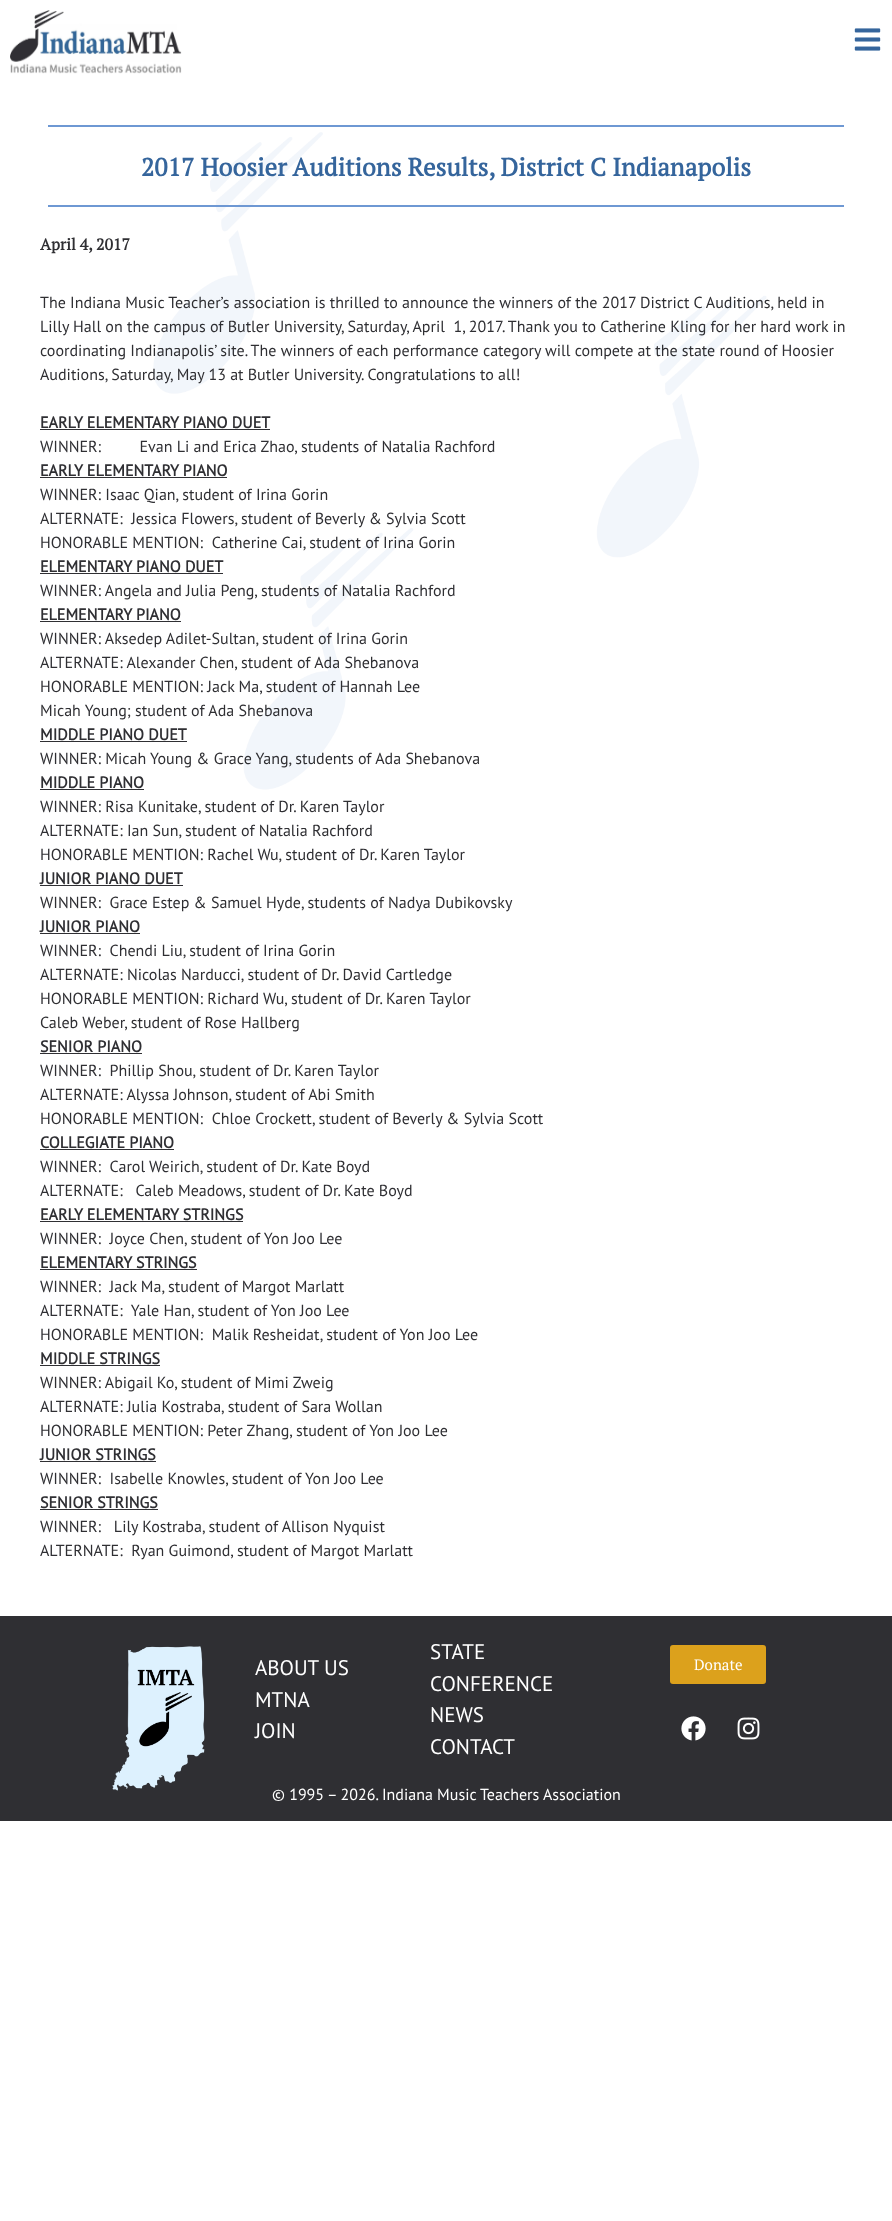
<svg xmlns="http://www.w3.org/2000/svg" width="892" height="2221" viewBox="0 0 892 2221">
  <rect width="100%" height="100%" fill="#ffffff"/>
  <image x="10" y="10" width="172" height="64" href="img1.png"/>
  <image x="854" y="28" width="27" height="23" href="img2.png"/>
  <image x="153" y="132" width="614" height="658" href="img3.png"/>
  <rect x="48" y="125" width="796" height="2" fill="#6e98d3"/>
  <text x="141" y="176" font-family="PT Serif" font-size="25" font-weight="bold" fill="#35659c">2017 Hoosier Auditions Results, District C Indianapolis</text>
  <rect x="48" y="205" width="796" height="2" fill="#6e98d3"/>
  <text x="40" y="250" font-family="PT Serif" font-size="16" font-weight="bold" fill="#2f2f33">April 4, 2017</text>
  <text x="40" y="308" font-family="PT Sans" font-size="16" fill="#2f2f33">The Indiana Music Teacher’s association is thrilled to announce the winners of the 2017 District C Auditions, held in</text>
  <text x="40" y="332" font-family="PT Sans" font-size="16" fill="#2f2f33" xml:space="preserve">Lilly Hall on the campus of Butler University, Saturday, April  1, 2017. Thank you to Catherine Kling for her hard work in</text>
  <text x="40" y="356" font-family="PT Sans" font-size="16" fill="#2f2f33">coordinating Indianapolis’ site. The winners of each performance category will compete at the state round of Hoosier</text>
  <text x="40" y="380" font-family="PT Sans" font-size="16" fill="#2f2f33">Auditions, Saturday, May 13 at Butler University. Congratulations to all!</text>
  <text x="40" y="428" font-family="PT Sans" font-size="16" font-weight="bold" fill="#2f2f33">EARLY ELEMENTARY PIANO DUET</text>
  <rect x="40" y="429" width="230" height="1" fill="#2f2f33"/>
  <text x="40" y="452" font-family="PT Sans" font-size="16" fill="#2f2f33" xml:space="preserve">WINNER:         Evan Li and Erica Zhao, students of Natalia Rachford</text>
  <text x="40" y="476" font-family="PT Sans" font-size="16" font-weight="bold" fill="#2f2f33">EARLY ELEMENTARY PIANO</text>
  <rect x="40" y="477" width="187" height="1" fill="#2f2f33"/>
  <text x="40" y="500" font-family="PT Sans" font-size="16" fill="#2f2f33">WINNER: Isaac Qian, student of Irina Gorin</text>
  <text x="40" y="524" font-family="PT Sans" font-size="16" fill="#2f2f33" xml:space="preserve">ALTERNATE:  Jessica Flowers, student of Beverly &amp; Sylvia Scott</text>
  <text x="40" y="548" font-family="PT Sans" font-size="16" fill="#2f2f33" xml:space="preserve">HONORABLE MENTION:  Catherine Cai, student of Irina Gorin</text>
  <text x="40" y="572" font-family="PT Sans" font-size="16" font-weight="bold" fill="#2f2f33">ELEMENTARY PIANO DUET</text>
  <rect x="40" y="573" width="183" height="1" fill="#2f2f33"/>
  <text x="40" y="596" font-family="PT Sans" font-size="16" fill="#2f2f33">WINNER: Angela and Julia Peng, students of Natalia Rachford</text>
  <text x="40" y="620" font-family="PT Sans" font-size="16" font-weight="bold" fill="#2f2f33">ELEMENTARY PIANO</text>
  <rect x="40" y="621" width="141" height="1" fill="#2f2f33"/>
  <text x="40" y="644" font-family="PT Sans" font-size="16" fill="#2f2f33">WINNER: Aksedep Adilet-Sultan, student of Irina Gorin</text>
  <text x="40" y="668" font-family="PT Sans" font-size="16" fill="#2f2f33">ALTERNATE: Alexander Chen, student of Ada Shebanova</text>
  <text x="40" y="692" font-family="PT Sans" font-size="16" fill="#2f2f33">HONORABLE MENTION: Jack Ma, student of Hannah Lee</text>
  <text x="40" y="716" font-family="PT Sans" font-size="16" fill="#2f2f33">Micah Young; student of Ada Shebanova</text>
  <text x="40" y="740" font-family="PT Sans" font-size="16" font-weight="bold" fill="#2f2f33">MIDDLE PIANO DUET</text>
  <rect x="40" y="741" width="147" height="1" fill="#2f2f33"/>
  <text x="40" y="764" font-family="PT Sans" font-size="16" fill="#2f2f33">WINNER: Micah Young &amp; Grace Yang, students of Ada Shebanova</text>
  <text x="40" y="788" font-family="PT Sans" font-size="16" font-weight="bold" fill="#2f2f33">MIDDLE PIANO</text>
  <rect x="40" y="789" width="104" height="1" fill="#2f2f33"/>
  <text x="40" y="812" font-family="PT Sans" font-size="16" fill="#2f2f33">WINNER: Risa Kunitake, student of Dr. Karen Taylor</text>
  <text x="40" y="836" font-family="PT Sans" font-size="16" fill="#2f2f33">ALTERNATE: Ian Sun, student of Natalia Rachford</text>
  <text x="40" y="860" font-family="PT Sans" font-size="16" fill="#2f2f33">HONORABLE MENTION: Rachel Wu, student of Dr. Karen Taylor</text>
  <text x="40" y="884" font-family="PT Sans" font-size="16" font-weight="bold" fill="#2f2f33">JUNIOR PIANO DUET</text>
  <rect x="40" y="885" width="143" height="1" fill="#2f2f33"/>
  <text x="40" y="908" font-family="PT Sans" font-size="16" fill="#2f2f33" xml:space="preserve">WINNER:  Grace Estep &amp; Samuel Hyde, students of Nadya Dubikovsky</text>
  <text x="40" y="932" font-family="PT Sans" font-size="16" font-weight="bold" fill="#2f2f33">JUNIOR PIANO</text>
  <rect x="40" y="933" width="100" height="1" fill="#2f2f33"/>
  <text x="40" y="956" font-family="PT Sans" font-size="16" fill="#2f2f33" xml:space="preserve">WINNER:  Chendi Liu, student of Irina Gorin</text>
  <text x="40" y="980" font-family="PT Sans" font-size="16" fill="#2f2f33">ALTERNATE: Nicolas Narducci, student of Dr. David Cartledge</text>
  <text x="40" y="1004" font-family="PT Sans" font-size="16" fill="#2f2f33">HONORABLE MENTION: Richard Wu, student of Dr. Karen Taylor</text>
  <text x="40" y="1028" font-family="PT Sans" font-size="16" fill="#2f2f33">Caleb Weber, student of Rose Hallberg</text>
  <text x="40" y="1052" font-family="PT Sans" font-size="16" font-weight="bold" fill="#2f2f33">SENIOR PIANO</text>
  <rect x="40" y="1053" width="102" height="1" fill="#2f2f33"/>
  <text x="40" y="1076" font-family="PT Sans" font-size="16" fill="#2f2f33" xml:space="preserve">WINNER:  Phillip Shou, student of Dr. Karen Taylor</text>
  <text x="40" y="1100" font-family="PT Sans" font-size="16" fill="#2f2f33">ALTERNATE: Alyssa Johnson, student of Abi Smith</text>
  <text x="40" y="1124" font-family="PT Sans" font-size="16" fill="#2f2f33" xml:space="preserve">HONORABLE MENTION:  Chloe Crockett, student of Beverly &amp; Sylvia Scott</text>
  <text x="40" y="1148" font-family="PT Sans" font-size="16" font-weight="bold" fill="#2f2f33">COLLEGIATE PIANO</text>
  <rect x="40" y="1149" width="134" height="1" fill="#2f2f33"/>
  <text x="40" y="1172" font-family="PT Sans" font-size="16" fill="#2f2f33" xml:space="preserve">WINNER:  Carol Weirich, student of Dr. Kate Boyd</text>
  <text x="40" y="1196" font-family="PT Sans" font-size="16" fill="#2f2f33" xml:space="preserve">ALTERNATE:   Caleb Meadows, student of Dr. Kate Boyd</text>
  <text x="40" y="1220" font-family="PT Sans" font-size="16" font-weight="bold" fill="#2f2f33">EARLY ELEMENTARY STRINGS</text>
  <rect x="40" y="1221" width="203" height="1" fill="#2f2f33"/>
  <text x="40" y="1244" font-family="PT Sans" font-size="16" fill="#2f2f33" xml:space="preserve">WINNER:  Joyce Chen, student of Yon Joo Lee</text>
  <text x="40" y="1268" font-family="PT Sans" font-size="16" font-weight="bold" fill="#2f2f33">ELEMENTARY</text>
  <rect x="40" y="1269" width="157" height="1" fill="#2f2f33"/>
  <text x="136" y="1268" font-family="PT Sans" font-size="16" font-weight="bold" fill="#2f2f33">STRINGS</text>
  <text x="40" y="1292" font-family="PT Sans" font-size="16" fill="#2f2f33" xml:space="preserve">WINNER:  Jack Ma, student of Margot Marlatt</text>
  <text x="40" y="1316" font-family="PT Sans" font-size="16" fill="#2f2f33" xml:space="preserve">ALTERNATE:  Yale Han, student of Yon Joo Lee</text>
  <text x="40" y="1340" font-family="PT Sans" font-size="16" fill="#2f2f33" xml:space="preserve">HONORABLE MENTION:  Malik Resheidat, student of Yon Joo Lee</text>
  <text x="40" y="1364" font-family="PT Sans" font-size="16" font-weight="bold" fill="#2f2f33">MIDDLE STRINGS</text>
  <rect x="40" y="1365" width="120" height="1" fill="#2f2f33"/>
  <text x="40" y="1388" font-family="PT Sans" font-size="16" fill="#2f2f33">WINNER: Abigail Ko, student of Mimi Zweig</text>
  <text x="40" y="1412" font-family="PT Sans" font-size="16" fill="#2f2f33">ALTERNATE: Julia Kostraba, student of Sara Wollan</text>
  <text x="40" y="1436" font-family="PT Sans" font-size="16" fill="#2f2f33">HONORABLE MENTION: Peter Zhang, student of Yon Joo Lee</text>
  <text x="40" y="1460" font-family="PT Sans" font-size="16" font-weight="bold" fill="#2f2f33">JUNIOR STRINGS</text>
  <rect x="40" y="1461" width="116" height="1" fill="#2f2f33"/>
  <text x="40" y="1484" font-family="PT Sans" font-size="16" fill="#2f2f33" xml:space="preserve">WINNER:  Isabelle Knowles, student of Yon Joo Lee</text>
  <text x="40" y="1508" font-family="PT Sans" font-size="16" font-weight="bold" fill="#2f2f33">SENIOR STRINGS</text>
  <rect x="40" y="1509" width="118" height="1" fill="#2f2f33"/>
  <text x="40" y="1532" font-family="PT Sans" font-size="16" fill="#2f2f33" xml:space="preserve">WINNER:   Lily Kostraba, student of Allison Nyquist</text>
  <text x="40" y="1556" font-family="PT Sans" font-size="16" fill="#2f2f33" xml:space="preserve">ALTERNATE:  Ryan Guimond, student of Margot Marlatt</text>
  <rect x="0" y="1616" width="892" height="205" fill="#2f2f33"/>
  <image x="112" y="1646" width="93" height="145" href="img4.png"/>
  <text x="255" y="1675" font-family="PT Sans" font-size="21" fill="#ffffff">ABOUT US</text>
  <text x="255" y="1707" font-family="PT Sans" font-size="21" fill="#ffffff">MTNA</text>
  <text x="255" y="1738" font-family="PT Sans" font-size="21" fill="#ffffff">JOIN</text>
  <text x="430" y="1659" font-family="PT Sans" font-size="21" fill="#ffffff">STATE</text>
  <text x="430" y="1691" font-family="PT Sans" font-size="21" fill="#ffffff">CONFERENCE</text>
  <text x="430" y="1722" font-family="PT Sans" font-size="21" fill="#ffffff">NEWS</text>
  <text x="430" y="1754" font-family="PT Sans" font-size="21" fill="#ffffff">CONTACT</text>
  <rect x="670" y="1645" width="96" height="39" rx="3" fill="#dca11c"/>
  <text x="694" y="1670" font-family="PT Serif" font-size="15" fill="#ffffff">Donate</text>
  <image x="681" y="1716" width="25" height="25" href="img5.png"/>
  <image x="737" y="1717" width="23" height="23" href="img6.png"/>
  <text x="272" y="1800" font-family="PT Sans" font-size="16" fill="#ffffff">© 1995 – 2026. Indiana Music Teachers Association</text>
</svg>
